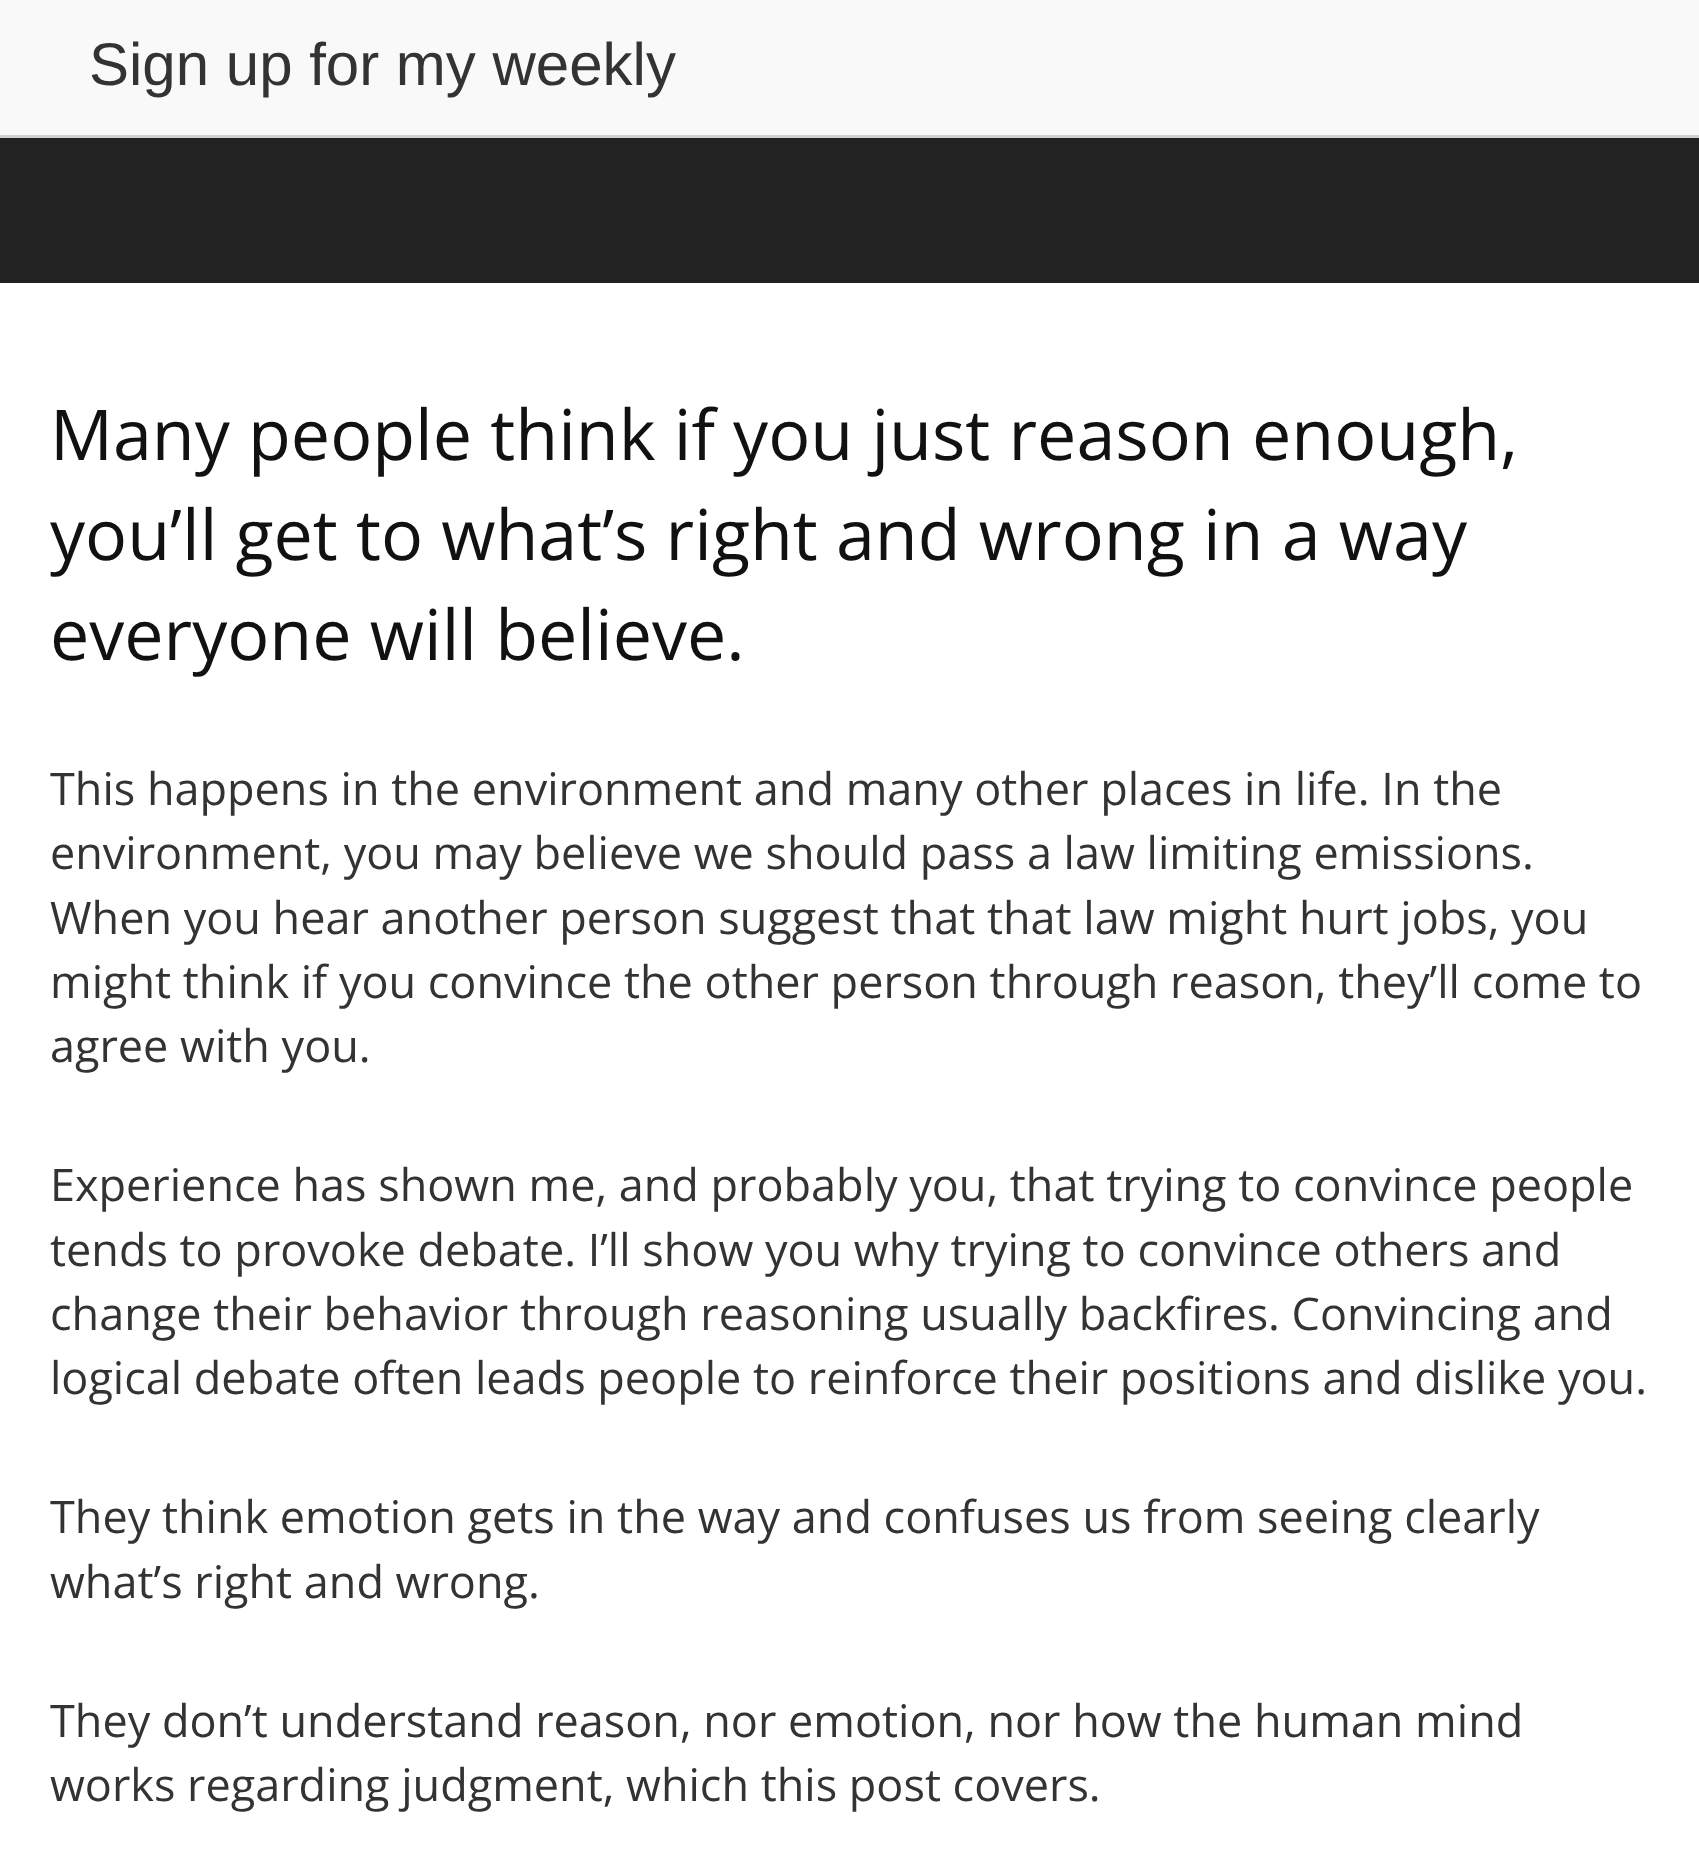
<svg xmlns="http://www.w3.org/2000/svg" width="1699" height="1870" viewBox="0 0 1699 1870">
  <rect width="100%" height="100%" fill="#ffffff"/>
  <rect x="0" y="0" width="1699" height="135" fill="#f9f9f9"/>
  <rect x="0" y="135" width="1699" height="3" fill="#d1d1d1"/>
  <text x="89" y="85" font-family="Liberation Sans" font-size="60" fill="#333333">Sign up for my weekly</text>
  <rect x="0" y="138" width="1699" height="145" fill="#222222"/>
  <text x="50" y="460" font-family="Open Sans" font-size="70" fill="#111111">Many people think if you just reason enough,</text>
  <text x="50" y="560" font-family="Open Sans" font-size="70" fill="#111111">you’ll get to what’s right and wrong in a way</text>
  <text x="50" y="660" font-family="Open Sans" font-size="70" fill="#111111">everyone will believe.</text>
  <text x="50" y="805" font-family="Open Sans" font-size="45" fill="#333333">This happens in the environment and many other places in life. In the</text>
  <text x="50" y="869" font-family="Open Sans" font-size="45" fill="#333333">environment, you may believe we should pass a law limiting emissions.</text>
  <text x="50" y="934" font-family="Open Sans" font-size="45" fill="#333333">When you hear another person suggest that that law might hurt jobs, you</text>
  <text x="50" y="998" font-family="Open Sans" font-size="45" fill="#333333">might think if you convince the other person through reason, they’ll come to</text>
  <text x="50" y="1062" font-family="Open Sans" font-size="45" fill="#333333">agree with you.</text>
  <text x="50" y="1201" font-family="Open Sans" font-size="45" fill="#333333">Experience has shown me, and probably you, that trying to convince people</text>
  <text x="50" y="1266" font-family="Open Sans" font-size="45" fill="#333333">tends to provoke debate. I’ll show you why trying to convince others and</text>
  <text x="50" y="1330" font-family="Open Sans" font-size="45" fill="#333333">change their behavior through reasoning usually backfires. Convincing and</text>
  <text x="50" y="1394" font-family="Open Sans" font-size="45" fill="#333333">logical debate often leads people to reinforce their positions and dislike you.</text>
  <text x="50" y="1533" font-family="Open Sans" font-size="45" fill="#333333">They think emotion gets in the way and confuses us from seeing clearly</text>
  <text x="50" y="1598" font-family="Open Sans" font-size="45" fill="#333333">what’s right and wrong.</text>
  <text x="50" y="1737" font-family="Open Sans" font-size="45" fill="#333333">They don’t understand reason, nor emotion, nor how the human mind</text>
  <text x="50" y="1801" font-family="Open Sans" font-size="45" fill="#333333">works regarding judgment, which this post covers.</text>
</svg>
